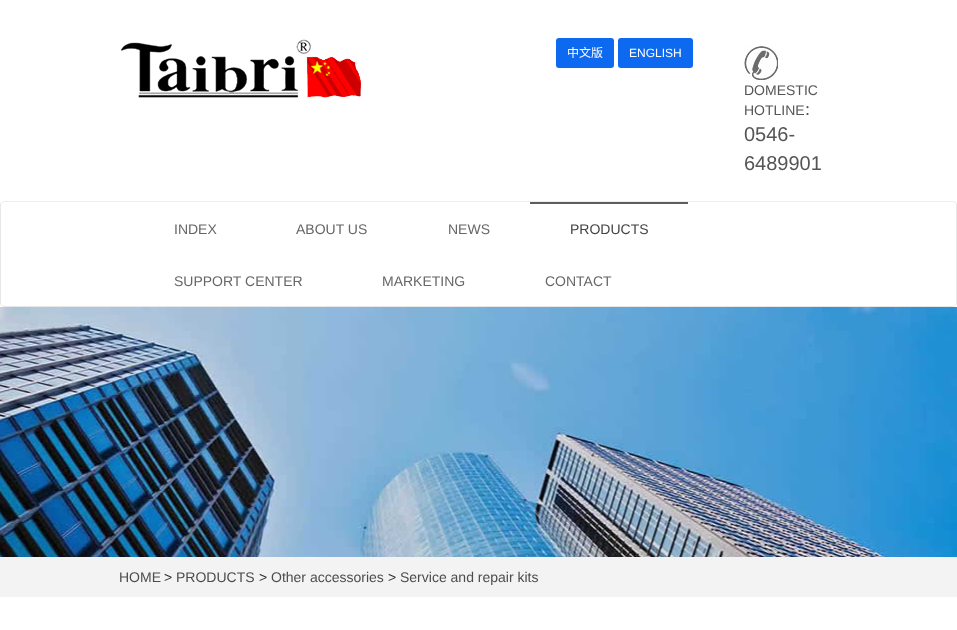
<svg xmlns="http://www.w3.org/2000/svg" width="957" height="630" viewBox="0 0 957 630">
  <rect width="100%" height="100%" fill="#ffffff"/>
  <image x="120" y="39" width="241" height="59" href="img1.png"/>
  <rect x="556" y="38" width="58" height="30" rx="3" fill="#0d69f0"/>
  <text x="567" y="57" font-family="Noto Sans CJK SC" font-size="12" fill="#ffffff">中文版</text>
  <rect x="618" y="38" width="75" height="30" rx="3" fill="#0d69f0"/>
  <text x="629" y="57" font-family="Liberation Sans" font-size="12" fill="#ffffff">ENGLISH</text>
  <image x="744" y="46" width="34" height="34" href="img2.png"/>
  <text x="744" y="95" font-family="Liberation Sans" font-size="14" fill="#555555">DOMESTIC</text>
  <text x="744" y="115" font-family="Liberation Sans" font-size="14" fill="#555555">HOTLINE</text>
  <text x="804" y="115" font-family="Noto Sans CJK SC" font-size="14" fill="#555555">：</text>
  <text x="744" y="141" font-family="Liberation Sans" font-size="20" fill="#555555">0546-</text>
  <text x="744" y="170" font-family="Liberation Sans" font-size="20" fill="#555555">6489901</text>
  <path d="M1.5 202.5L4 201.5H953L955.5 202.5" fill="none" stroke="#eeeeee"/>
  <path d="M955.5 202.5C956 203 956.5 204 956.5 205V303C956.5 304 956 305 955.5 305.5C955 306 954 306.5 953 306.5H4C3 306.5 2 306 1.5 305.5C1 305 .5 304 .5 303V205C.5 204 1 203 1.5 202.5" fill="none" stroke="#e7e7e7"/>
  <text x="174" y="234" font-family="Liberation Sans" font-size="14" fill="#666666">INDEX</text>
  <text x="296" y="234" font-family="Liberation Sans" font-size="14" fill="#666666">ABOUT US</text>
  <text x="448" y="234" font-family="Liberation Sans" font-size="14" fill="#666666">NEWS</text>
  <rect x="530" y="202" width="158" height="2" fill="#5d5d5d"/>
  <text x="570" y="234" font-family="Liberation Sans" font-size="14" fill="#434343">PRODUCTS</text>
  <text x="174" y="286" font-family="Liberation Sans" font-size="14" fill="#666666">SUPPORT CENTER</text>
  <text x="382" y="286" font-family="Liberation Sans" font-size="14" fill="#666666">MARKETING</text>
  <text x="545" y="286" font-family="Liberation Sans" font-size="14" fill="#666666">CONTACT</text>
  <image x="0" y="307" width="957" height="250" href="img3.png"/>
  <rect x="0" y="557" width="957" height="40" fill="#f3f3f3"/>
  <text x="119" y="582" font-family="Liberation Sans" font-size="14" fill="#4c4c4c">HOME</text>
  <text x="164" y="582" font-family="Liberation Sans" font-size="14" fill="#2f2f2f">&gt;</text>
  <text x="176" y="582" font-family="Liberation Sans" font-size="14" fill="#4c4c4c">PRODUCTS</text>
  <text x="259" y="582" font-family="Liberation Sans" font-size="14" fill="#2f2f2f">&gt;</text>
  <text x="271" y="582" font-family="Liberation Sans" font-size="14" fill="#4c4c4c">Other accessories</text>
  <text x="388" y="582" font-family="Liberation Sans" font-size="14" fill="#2f2f2f">&gt;</text>
  <text x="400" y="582" font-family="Liberation Sans" font-size="14" fill="#4c4c4c">Service and repair kits</text>
</svg>
